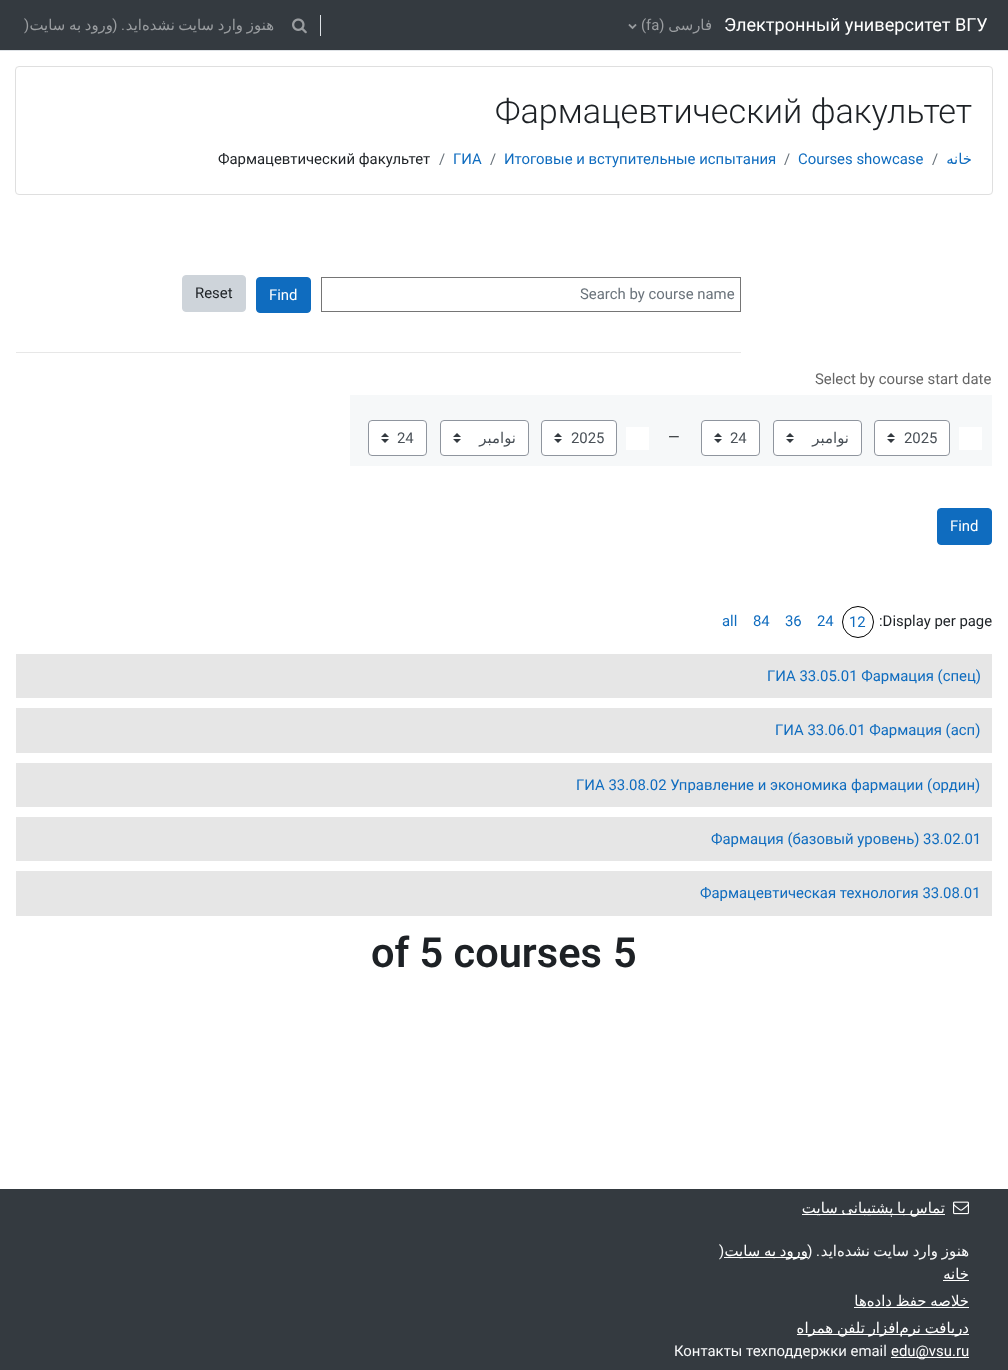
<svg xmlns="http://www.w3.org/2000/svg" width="1008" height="1370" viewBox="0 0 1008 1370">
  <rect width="100%" height="100%" fill="#ffffff"/>
  <rect x="0" y="0" width="1008" height="50" fill="#343a40"/>
  <rect x="0" y="50" width="1008" height="1" fill="#dee2e6"/>
  <text x="24" y="30" font-family="Roboto" font-size="14.9" fill="#9a9da0">)</text>
  <text x="125" y="30" font-family="Roboto" font-size="14.9" direction="rtl" fill="#9a9da0">. (</text>
  <text x="113" y="30" word-spacing="-1" font-family="DejaVu Sans" font-size="14.9" direction="rtl" fill="#9a9da0">ورود به سایت</text>
  <text x="175" y="30" font-family="DejaVu Sans" font-size="14.9" direction="rtl" fill="#9a9da0">نشده‌اید</text>
  <text x="214" y="30" font-family="DejaVu Sans" font-size="14.9" direction="rtl" fill="#9a9da0">سایت</text>
  <text x="243" y="30" font-family="DejaVu Sans" font-size="14.9" direction="rtl" fill="#9a9da0">وارد</text>
  <text x="274" y="30" font-family="DejaVu Sans" font-size="14.9" direction="rtl" fill="#9a9da0">هنوز</text>
  <image x="292" y="18" width="15" height="16" href="img1.png"/>
  <rect x="320" y="15" width="1" height="21" fill="#dee2e6"/>
  <image x="628" y="24" width="9" height="6" href="img2.png"/>
  <text x="641" y="30" font-family="Roboto" font-size="14.9" fill="#9a9da0">(fa)</text>
  <text x="712" y="30" font-family="DejaVu Sans" font-size="14.9" direction="rtl" fill="#9a9da0">فارسی</text>
  <text x="724" y="31" font-family="Roboto" font-size="18.1" fill="#ffffff">Электронный университет ВГУ</text>
  <rect x="15.5" y="66.5" width="977" height="128" rx="3.5" fill="none" stroke="#dfdfdf"/>
  <text x="495" y="123" font-family="Roboto" font-size="34.2" font-weight="300" fill="#1d2125">Фармацевтический факультет</text>
  <text x="218" y="164" font-family="Roboto" font-size="14.9" fill="#1d2125">Фармацевтический факультет</text>
  <text x="439" y="164" font-family="Roboto" font-size="14.9" fill="#6a737b">/</text>
  <text x="453" y="164" font-family="Roboto" font-size="14.9" fill="#0f6cbf">ГИА</text>
  <text x="490" y="164" font-family="Roboto" font-size="14.9" fill="#6a737b">/</text>
  <text x="504" y="164" font-family="Roboto" font-size="14.9" fill="#0f6cbf">Итоговые и вступительные испытания</text>
  <text x="784" y="164" font-family="Roboto" font-size="14.9" fill="#6a737b">/</text>
  <text x="798" y="164" font-family="Roboto" font-size="14.9" fill="#0f6cbf">Courses showcase</text>
  <text x="932" y="164" font-family="Roboto" font-size="14.9" fill="#6a737b">/</text>
  <text x="972" y="164" font-family="DejaVu Sans" font-size="14.9" direction="rtl" fill="#0f6cbf">خانه</text>
  <rect x="16" y="352" width="725" height="1" fill="#e7e7e7"/>
  <rect x="182.5" y="275.5" width="63" height="36" rx="3.5" fill="#ced4da" stroke="#ced4da"/>
  <text x="195" y="298" font-family="Roboto" font-size="14.9" fill="#1d2125">Reset</text>
  <rect x="256.5" y="277.5" width="54" height="35" rx="3.5" fill="#0f6cbf" stroke="#0f6cbf"/>
  <text x="269" y="300" font-family="Roboto" font-size="14.9" fill="#ffffff">Find</text>
  <rect x="321.5" y="277.5" width="419" height="34" fill="none" stroke="#757575"/>
  <text x="580" y="299" font-family="Roboto" font-size="14.9" fill="#6a737b">Search by course name</text>
  <text x="815" y="384" font-family="Roboto" font-size="14.9" fill="#666666">Select by course start date</text>
  <rect x="350" y="395" width="642" height="71" fill="#f6f8f9"/>
  <rect x="368" y="420" width="59" height="36" rx="4" fill="#ffffff"/>
  <image x="381" y="433" width="8" height="10" href="img3.png"/>
  <rect x="368.5" y="420.5" width="58" height="35" rx="3.5" fill="none" stroke="#8f959e"/>
  <text x="397" y="443" font-family="Roboto" font-size="14.9" fill="#495057">24</text>
  <rect x="440" y="420" width="89" height="36" rx="4" fill="#ffffff"/>
  <image x="453" y="433" width="8" height="10" href="img3.png"/>
  <rect x="440.5" y="420.5" width="88" height="35" rx="3.5" fill="none" stroke="#8f959e"/>
  <text x="516" y="443" font-family="DejaVu Sans" font-size="14.9" direction="rtl" fill="#495057">نوامبر</text>
  <rect x="541" y="420" width="76" height="36" rx="4" fill="#ffffff"/>
  <image x="554" y="433" width="8" height="10" href="img3.png"/>
  <rect x="541.5" y="420.5" width="75" height="35" rx="3.5" fill="none" stroke="#8f959e"/>
  <text x="571" y="443" font-family="Roboto" font-size="14.9" fill="#495057">2025</text>
  <rect x="626" y="427" width="23" height="23" fill="#ffffff"/>
  <text x="668" y="442" font-family="Roboto" font-size="14.9" fill="#1d2125">—</text>
  <rect x="701" y="420" width="59" height="36" rx="4" fill="#ffffff"/>
  <image x="714" y="433" width="8" height="10" href="img3.png"/>
  <rect x="701.5" y="420.5" width="58" height="35" rx="3.5" fill="none" stroke="#8f959e"/>
  <text x="730" y="443" font-family="Roboto" font-size="14.9" fill="#495057">24</text>
  <rect x="773" y="420" width="89" height="36" rx="4" fill="#ffffff"/>
  <image x="786" y="433" width="8" height="10" href="img3.png"/>
  <rect x="773.5" y="420.5" width="88" height="35" rx="3.5" fill="none" stroke="#8f959e"/>
  <text x="849" y="443" font-family="DejaVu Sans" font-size="14.9" direction="rtl" fill="#495057">نوامبر</text>
  <rect x="874" y="420" width="76" height="36" rx="4" fill="#ffffff"/>
  <image x="887" y="433" width="8" height="10" href="img3.png"/>
  <rect x="874.5" y="420.5" width="75" height="35" rx="3.5" fill="none" stroke="#8f959e"/>
  <text x="904" y="443" font-family="Roboto" font-size="14.9" fill="#495057">2025</text>
  <rect x="959" y="427" width="23" height="23" fill="#ffffff"/>
  <rect x="937.5" y="508.5" width="54" height="36" rx="3.5" fill="#0f6cbf" stroke="#0f6cbf"/>
  <text x="950" y="531" font-family="Roboto" font-size="14.9" fill="#ffffff">Find</text>
  <text x="722" y="626" font-family="Roboto" font-size="14.9" fill="#0f6cbf">all</text>
  <text x="753" y="626" font-family="Roboto" font-size="14.9" fill="#0f6cbf">84</text>
  <text x="785" y="626" font-family="Roboto" font-size="14.9" fill="#0f6cbf">36</text>
  <text x="817" y="626" font-family="Roboto" font-size="14.9" fill="#0f6cbf">24</text>
  <circle cx="858" cy="622" r="15.5" fill="none" stroke="#000000"/>
  <text x="849" y="627" font-family="Roboto" font-size="14.9" fill="#0f6cbf">12</text>
  <text x="879" y="626" font-family="Roboto" font-size="14.9" fill="#1d2125">:Display per page</text>
  <rect x="16" y="654" width="976" height="44" fill="#e6e6e6"/>
  <text x="767" y="681" font-family="Roboto" font-size="14.9" fill="#0f6cbf">ГИА 33.05.01 Фармация (спец)</text>
  <rect x="16" y="708" width="976" height="45" fill="#e6e6e6"/>
  <text x="775" y="735" font-family="Roboto" font-size="14.9" fill="#0f6cbf">ГИА 33.06.01 Фармация (асп)</text>
  <rect x="16" y="763" width="976" height="44" fill="#e6e6e6"/>
  <text x="576" y="790" font-family="Roboto" font-size="14.9" fill="#0f6cbf">ГИА 33.08.02 Управление и экономика фармации (ордин)</text>
  <rect x="16" y="817" width="976" height="44" fill="#e6e6e6"/>
  <text x="711" y="844" font-family="Roboto" font-size="14.9" fill="#0f6cbf">Фармация (базовый уровень) 33.02.01</text>
  <rect x="16" y="871" width="976" height="45" fill="#e6e6e6"/>
  <text x="700" y="898" font-family="Roboto" font-size="14.9" fill="#0f6cbf">Фармацевтическая технология 33.08.01</text>
  <text x="371" y="967" font-family="Roboto" font-size="41.5" font-weight="600" fill="#1d2125">of 5 courses</text>
  <text x="613" y="967" font-family="Roboto" font-size="41.5" font-weight="600" fill="#1d2125">5</text>
  <rect x="0" y="1189" width="1008" height="181" fill="#343a40"/>
  <rect x="802" y="1214" width="143" height="1" fill="#ffffff"/>
  <text x="945" y="1213" word-spacing="-1" font-family="DejaVu Sans" font-size="14.9" direction="rtl" fill="#ffffff">تماس با پشتیبانی سایت</text>
  <image x="953" y="1201" width="16" height="14" href="img4.png"/>
  <text x="719" y="1256" font-family="Roboto" font-size="14.9" fill="#f8f9fa">)</text>
  <rect x="724" y="1257" width="84" height="1" fill="#ffffff"/>
  <text x="820" y="1256" font-family="Roboto" font-size="14.9" direction="rtl" fill="#f8f9fa">. (</text>
  <text x="808" y="1256" word-spacing="-1" font-family="DejaVu Sans" font-size="14.9" direction="rtl" fill="#ffffff">ورود به سایت</text>
  <text x="870" y="1256" font-family="DejaVu Sans" font-size="14.9" direction="rtl" fill="#f8f9fa">نشده‌اید</text>
  <text x="909" y="1256" font-family="DejaVu Sans" font-size="14.9" direction="rtl" fill="#f8f9fa">سایت</text>
  <text x="938" y="1256" font-family="DejaVu Sans" font-size="14.9" direction="rtl" fill="#f8f9fa">وارد</text>
  <text x="969" y="1256" font-family="DejaVu Sans" font-size="14.9" direction="rtl" fill="#f8f9fa">هنوز</text>
  <text x="969" y="1279" font-family="DejaVu Sans" font-size="14.9" direction="rtl" fill="#ffffff">خانه</text>
  <rect x="943" y="1280" width="26" height="1" fill="#ffffff"/>
  <text x="969" y="1306" word-spacing="-1" font-family="DejaVu Sans" font-size="14.9" direction="rtl" fill="#ffffff">خلاصه حفظ داده‌ها</text>
  <rect x="854" y="1307" width="115" height="1" fill="#ffffff"/>
  <rect x="797" y="1334" width="172" height="1" fill="#ffffff"/>
  <text x="969" y="1333" word-spacing="-1" font-family="DejaVu Sans" font-size="14.9" direction="rtl" fill="#ffffff">دریافت نرم‌افزار تلفن همراه</text>
  <text x="674" y="1356" font-family="Roboto" font-size="14.9" fill="#f8f9fa">Контакты техподдержки email</text>
  <rect x="891" y="1357" width="78" height="1" fill="#ffffff"/>
  <text x="891" y="1356" font-family="Roboto" font-size="14.9" fill="#ffffff">edu@vsu.ru</text>
</svg>
